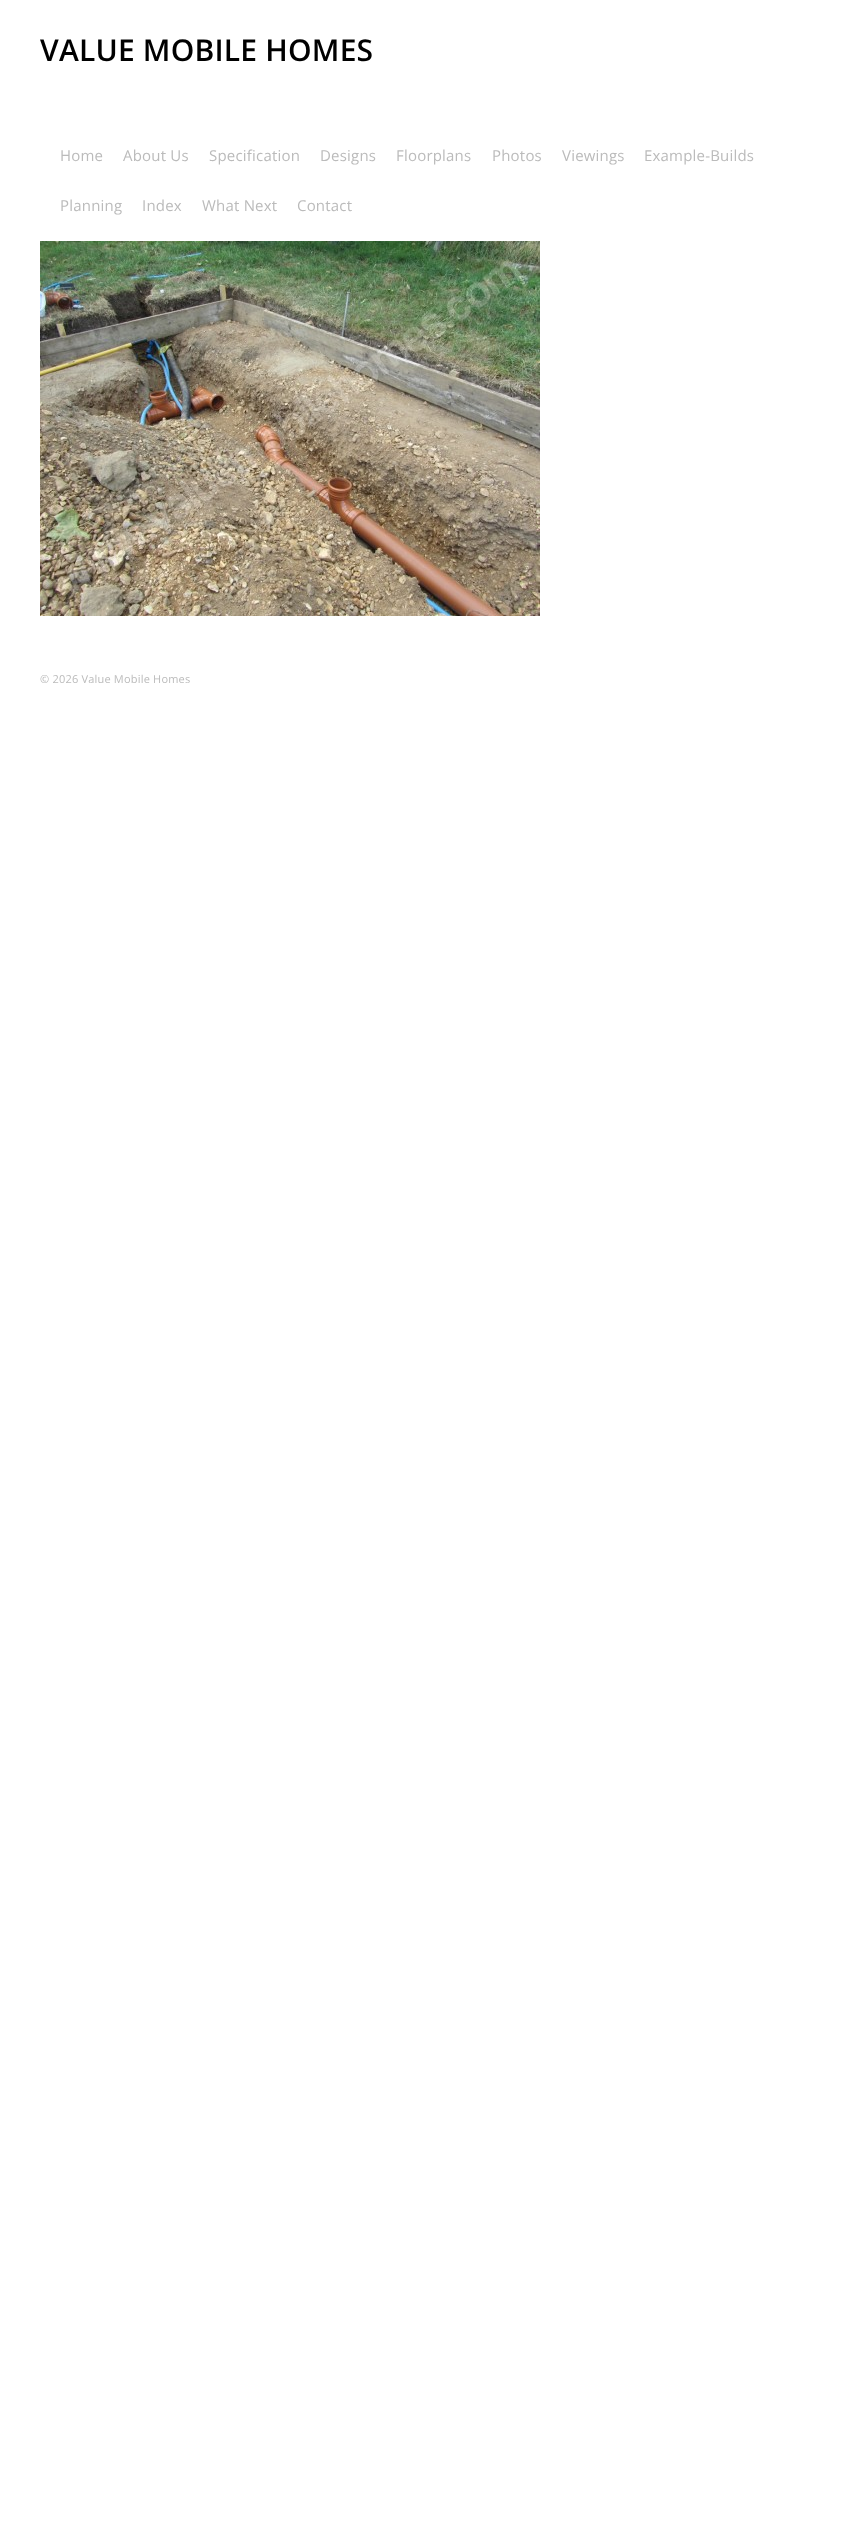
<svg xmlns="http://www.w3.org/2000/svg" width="860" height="2545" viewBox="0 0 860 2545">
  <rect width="100%" height="100%" fill="#ffffff"/>
  <text x="40" y="61" font-family="Open Sans" font-size="30" font-weight="600" letter-spacing="0.2" fill="#000000">VALUE MOBILE HOMES</text>
  <text x="60" y="161" font-family="Open Sans" font-size="15" letter-spacing="0.2" fill="#bbbbbb">Home</text>
  <text x="123" y="161" font-family="Open Sans" font-size="15" letter-spacing="0.2" fill="#bbbbbb">About Us</text>
  <text x="209" y="161" font-family="Open Sans" font-size="15" letter-spacing="0.2" fill="#bbbbbb">Specification</text>
  <text x="320" y="161" font-family="Open Sans" font-size="15" letter-spacing="0.2" fill="#bbbbbb">Designs</text>
  <text x="396" y="161" font-family="Open Sans" font-size="15" letter-spacing="0.2" fill="#bbbbbb">Floorplans</text>
  <text x="492" y="161" font-family="Open Sans" font-size="15" letter-spacing="0.2" fill="#bbbbbb">Photos</text>
  <text x="562" y="161" font-family="Open Sans" font-size="15" letter-spacing="0.2" fill="#bbbbbb">Viewings</text>
  <text x="644" y="161" font-family="Open Sans" font-size="15" letter-spacing="0.2" fill="#bbbbbb">Example-Builds</text>
  <text x="60" y="211" font-family="Open Sans" font-size="15" letter-spacing="0.2" fill="#bbbbbb">Planning</text>
  <text x="142" y="211" font-family="Open Sans" font-size="15" letter-spacing="0.2" fill="#bbbbbb">Index</text>
  <text x="202" y="211" font-family="Open Sans" font-size="15" letter-spacing="0.2" fill="#bbbbbb">What Next</text>
  <text x="297" y="211" font-family="Open Sans" font-size="15" letter-spacing="0.2" fill="#bbbbbb">Contact</text>
  <image x="40" y="241" width="500" height="375" href="img1.png"/>
  <text x="40" y="683" font-family="Open Sans" font-size="11" letter-spacing="0.2" fill="#bbbbbb">© 2026 Value Mobile Homes</text>
</svg>
